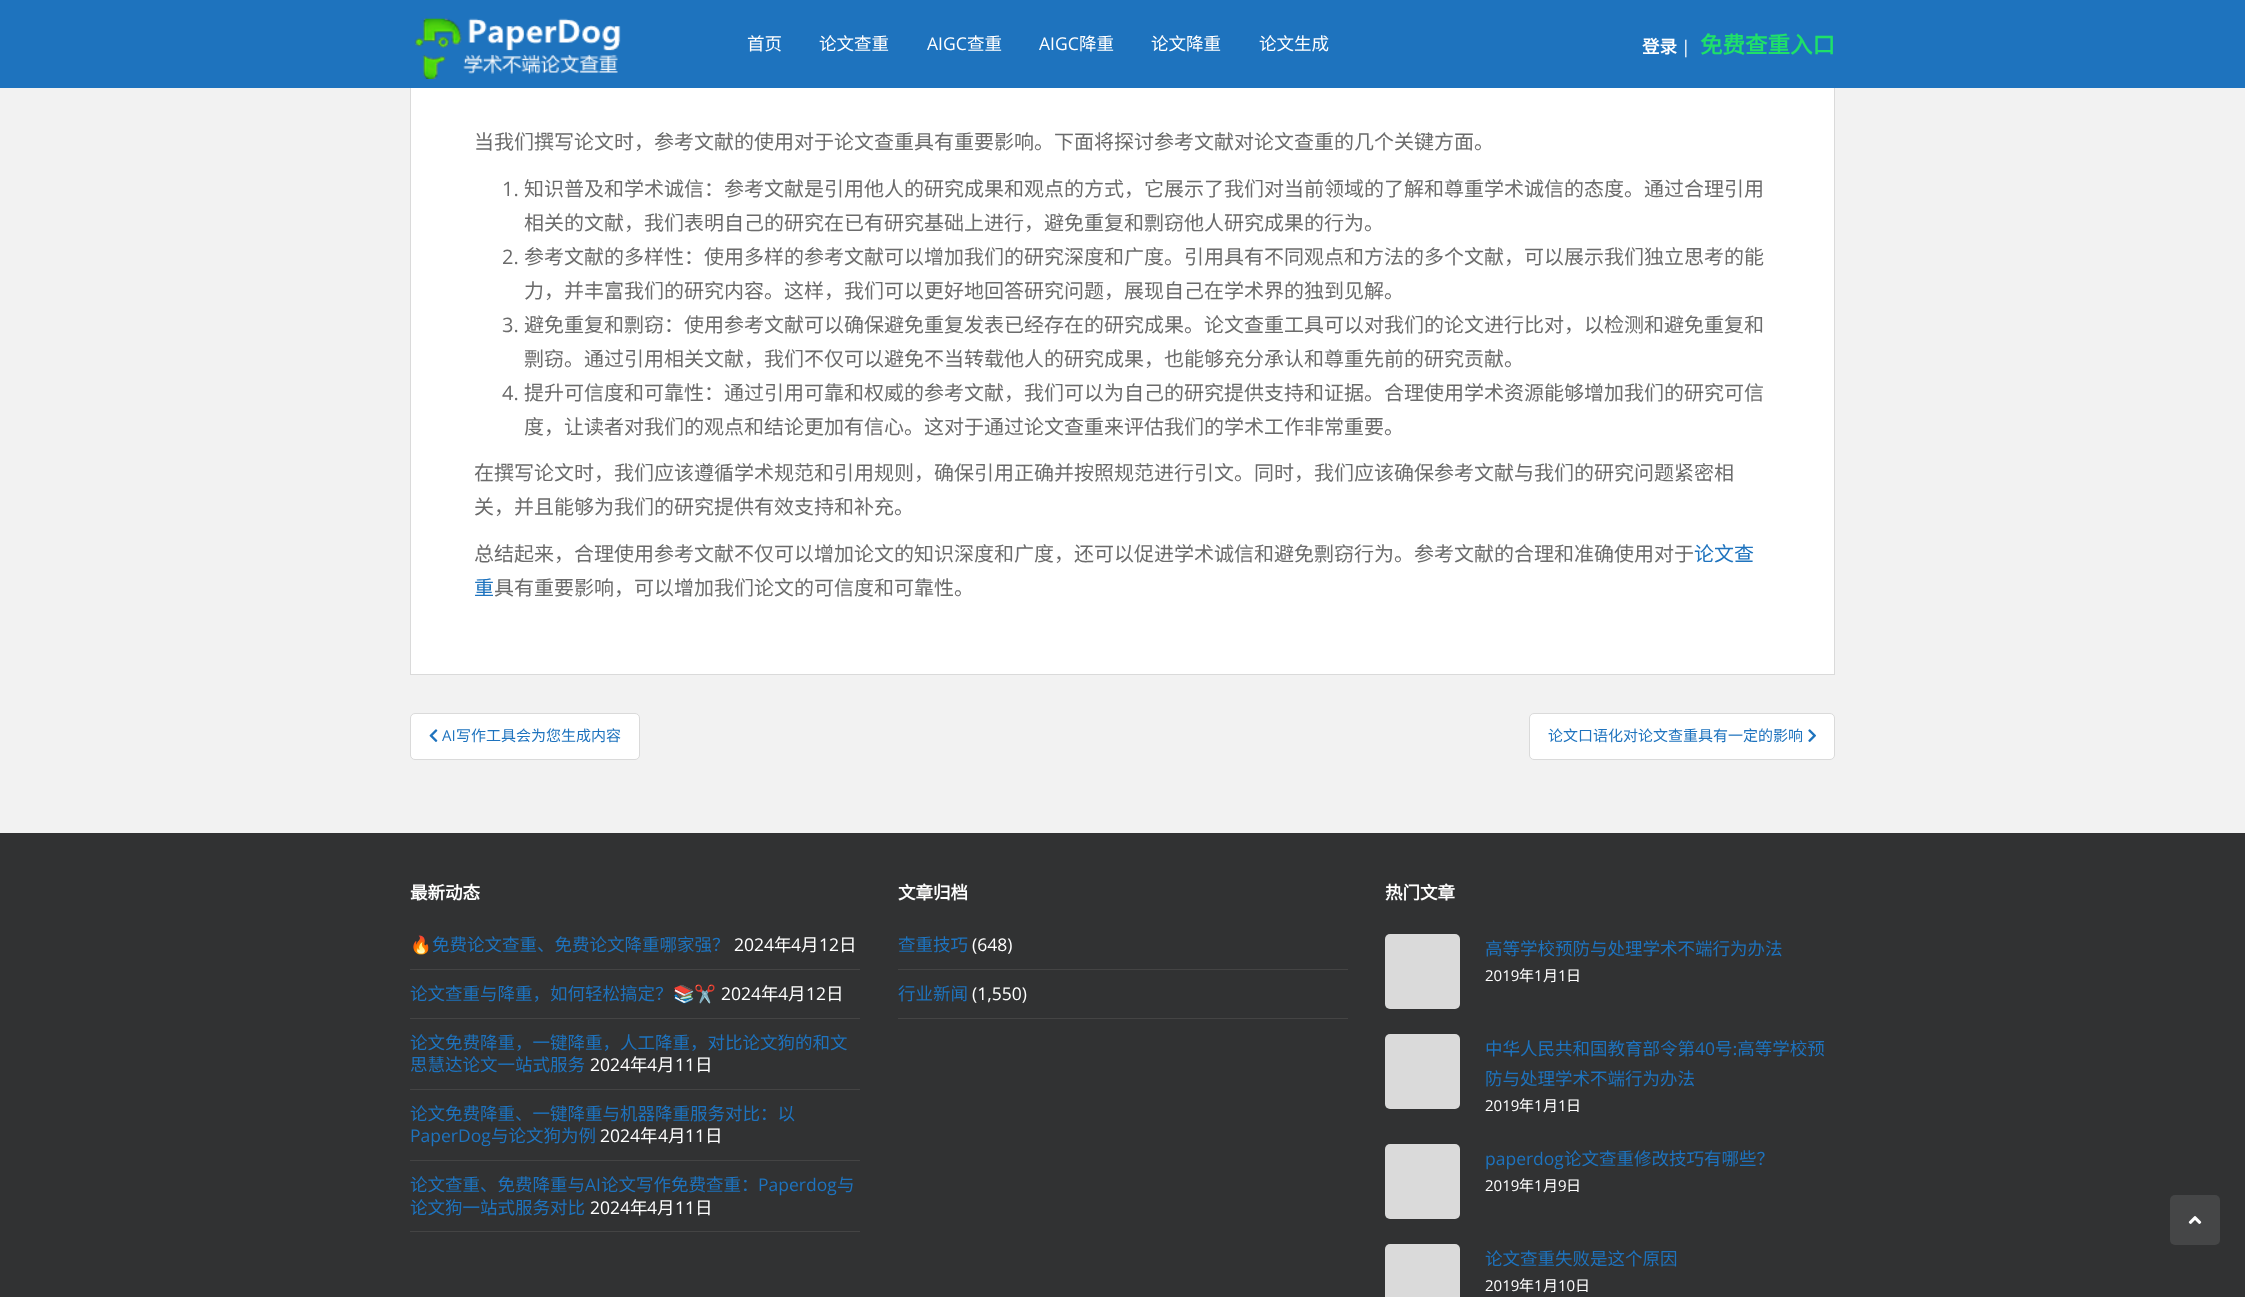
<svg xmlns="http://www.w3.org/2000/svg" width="2245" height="1297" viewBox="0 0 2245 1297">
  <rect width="100%" height="100%" fill="#f2f2f2"/>
  <rect x="411" y="88" width="1423" height="586" fill="#ffffff"/>
  <rect x="410.5" y="-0.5" width="1424" height="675" fill="none" stroke="#dadada"/>
  <rect x="0" y="0" width="2245" height="88" fill="#1e73be"/>
  <image x="414" y="17" width="207" height="62" href="img1.png"/>
  <text x="747" y="50" font-family="Noto Sans CJK SC" font-size="17.5" fill="#ffffff">首页</text>
  <text x="819" y="50" font-family="Noto Sans CJK SC" font-size="17.5" fill="#ffffff">论文查重</text>
  <text x="927" y="50" font-family="Open Sans" font-size="17.5" fill="#ffffff">AIGC</text>
  <text x="967" y="50" font-family="Noto Sans CJK SC" font-size="17.5" fill="#ffffff">查重</text>
  <text x="1039" y="50" font-family="Open Sans" font-size="17.5" fill="#ffffff">AIGC</text>
  <text x="1079" y="50" font-family="Noto Sans CJK SC" font-size="17.5" fill="#ffffff">降重</text>
  <text x="1151" y="50" font-family="Noto Sans CJK SC" font-size="17.5" fill="#ffffff">论文降重</text>
  <text x="1259" y="50" font-family="Noto Sans CJK SC" font-size="17.5" fill="#ffffff">论文生成</text>
  <text x="1642" y="53" font-family="Noto Sans CJK SC" font-size="17.5" font-weight="bold" fill="#ffffff">登录</text>
  <text x="1681" y="53" font-family="Open Sans" font-size="17.5" fill="#ffffff">|</text>
  <text x="1700" y="53" font-family="Noto Sans CJK SC" font-size="22.5" font-weight="bold" fill="#1fe069">免费查重入口</text>
  <text x="474" y="149" font-family="Noto Sans CJK SC" font-size="20" fill="#6b6b6b">当我们撰写论文时，参考文献的使用对于论文查重具有重要影响。下面将探讨参考文献对论文查重的几个关键方面。</text>
  <text x="502" y="196" font-family="Open Sans" font-size="20" fill="#6b6b6b">1.</text>
  <text x="524" y="196" font-family="Noto Sans CJK SC" font-size="20" fill="#6b6b6b">知识普及和学术诚信：参考文献是引用他人的研究成果和观点的方式，它展示了我们对当前领域的了解和尊重学术诚信的态度。通过合理引用</text>
  <text x="524" y="230" font-family="Noto Sans CJK SC" font-size="20" fill="#6b6b6b">相关的文献，我们表明自己的研究在已有研究基础上进行，避免重复和剽窃他人研究成果的行为。</text>
  <text x="502" y="264" font-family="Open Sans" font-size="20" fill="#6b6b6b">2.</text>
  <text x="524" y="264" font-family="Noto Sans CJK SC" font-size="20" fill="#6b6b6b">参考文献的多样性：使用多样的参考文献可以增加我们的研究深度和广度。引用具有不同观点和方法的多个文献，可以展示我们独立思考的能</text>
  <text x="524" y="298" font-family="Noto Sans CJK SC" font-size="20" fill="#6b6b6b">力，并丰富我们的研究内容。这样，我们可以更好地回答研究问题，展现自己在学术界的独到见解。</text>
  <text x="502" y="332" font-family="Open Sans" font-size="20" fill="#6b6b6b">3.</text>
  <text x="524" y="332" font-family="Noto Sans CJK SC" font-size="20" fill="#6b6b6b">避免重复和剽窃：使用参考文献可以确保避免重复发表已经存在的研究成果。论文查重工具可以对我们的论文进行比对，以检测和避免重复和</text>
  <text x="524" y="366" font-family="Noto Sans CJK SC" font-size="20" fill="#6b6b6b">剽窃。通过引用相关文献，我们不仅可以避免不当转载他人的研究成果，也能够充分承认和尊重先前的研究贡献。</text>
  <text x="502" y="400" font-family="Open Sans" font-size="20" fill="#6b6b6b">4.</text>
  <text x="524" y="400" font-family="Noto Sans CJK SC" font-size="20" fill="#6b6b6b">提升可信度和可靠性：通过引用可靠和权威的参考文献，我们可以为自己的研究提供支持和证据。合理使用学术资源能够增加我们的研究可信</text>
  <text x="524" y="434" font-family="Noto Sans CJK SC" font-size="20" fill="#6b6b6b">度，让读者对我们的观点和结论更加有信心。这对于通过论文查重来评估我们的学术工作非常重要。</text>
  <text x="474" y="480" font-family="Noto Sans CJK SC" font-size="20" fill="#6b6b6b">在撰写论文时，我们应该遵循学术规范和引用规则，确保引用正确并按照规范进行引文。同时，我们应该确保参考文献与我们的研究问题紧密相</text>
  <text x="474" y="514" font-family="Noto Sans CJK SC" font-size="20" fill="#6b6b6b">关，并且能够为我们的研究提供有效支持和补充。</text>
  <text x="474" y="561" font-family="Noto Sans CJK SC" font-size="20" fill="#6b6b6b">总结起来，合理使用参考文献不仅可以增加论文的知识深度和广度，还可以促进学术诚信和避免剽窃行为。参考文献的合理和准确使用对于</text>
  <text x="1694" y="561" font-family="Noto Sans CJK SC" font-size="20" fill="#1e73be">论文查</text>
  <text x="474" y="595" font-family="Noto Sans CJK SC" font-size="20" fill="#1e73be">重</text>
  <text x="494" y="595" font-family="Noto Sans CJK SC" font-size="20" fill="#6b6b6b">具有重要影响，可以增加我们论文的可信度和可靠性。</text>
  <rect x="410.5" y="713.5" width="229" height="46" rx="4.5" fill="#ffffff" stroke="#dadada"/>
  <image x="429" y="729" width="9" height="13" href="img2.png"/>
  <text x="442" y="741" font-family="Open Sans" font-size="15" fill="#1e73be">AI</text>
  <text x="456" y="741" font-family="Noto Sans CJK SC" font-size="15" fill="#1e73be">写作工具会为您生成内容</text>
  <rect x="1529.5" y="713.5" width="305" height="46" rx="4.5" fill="#ffffff" stroke="#dadada"/>
  <text x="1548" y="741" font-family="Noto Sans CJK SC" font-size="15" fill="#1e73be">论文口语化对论文查重具有一定的影响</text>
  <image x="1808" y="729" width="8" height="13" href="img3.png"/>
  <rect x="0" y="833" width="2245" height="464" fill="#313233"/>
  <text x="410" y="899" font-family="Noto Sans CJK SC" font-size="17.5" font-weight="bold" fill="#ffffff">最新动态</text>
  <rect x="410" y="969" width="450" height="1" fill="#444444"/>
  <text x="410" y="951" font-family="Noto Color Emoji" font-size="17.5" fill="#1e73be">🔥</text>
  <text x="432" y="951" font-family="Noto Sans CJK SC" font-size="17.5" fill="#1e73be">免费论文查重、免费论文降重哪家强？</text>
  <text x="734" y="951" font-family="Open Sans" font-size="17.5" fill="#ffffff">2024</text>
  <text x="774" y="951" font-family="Noto Sans CJK SC" font-size="17.5" fill="#ffffff">年</text>
  <text x="791" y="951" font-family="Open Sans" font-size="17.5" fill="#ffffff">4</text>
  <text x="801" y="951" font-family="Noto Sans CJK SC" font-size="17.5" fill="#ffffff">月</text>
  <text x="819" y="951" font-family="Open Sans" font-size="17.5" fill="#ffffff">12</text>
  <text x="839" y="951" font-family="Noto Sans CJK SC" font-size="17.5" fill="#ffffff">日</text>
  <rect x="410" y="1018" width="450" height="1" fill="#444444"/>
  <text x="410" y="1000" font-family="Noto Sans CJK SC" font-size="17.5" fill="#1e73be">论文查重与降重，如何轻松搞定？</text>
  <text x="673" y="1000" font-family="Noto Color Emoji" font-size="17.5" fill="#1e73be">📚✂️</text>
  <text x="721" y="1000" font-family="Open Sans" font-size="17.5" fill="#ffffff">2024</text>
  <text x="761" y="1000" font-family="Noto Sans CJK SC" font-size="17.5" fill="#ffffff">年</text>
  <text x="778" y="1000" font-family="Open Sans" font-size="17.5" fill="#ffffff">4</text>
  <text x="788" y="1000" font-family="Noto Sans CJK SC" font-size="17.5" fill="#ffffff">月</text>
  <text x="806" y="1000" font-family="Open Sans" font-size="17.5" fill="#ffffff">12</text>
  <text x="826" y="1000" font-family="Noto Sans CJK SC" font-size="17.5" fill="#ffffff">日</text>
  <rect x="410" y="1089" width="450" height="1" fill="#444444"/>
  <text x="410" y="1049" font-family="Noto Sans CJK SC" font-size="17.5" fill="#1e73be">论文免费降重，一键降重，人工降重，对比论文狗的和文</text>
  <text x="410" y="1071" font-family="Noto Sans CJK SC" font-size="17.5" fill="#1e73be">思慧达论文一站式服务</text>
  <text x="590" y="1071" font-family="Open Sans" font-size="17.5" fill="#ffffff">2024</text>
  <text x="630" y="1071" font-family="Noto Sans CJK SC" font-size="17.5" fill="#ffffff">年</text>
  <text x="647" y="1071" font-family="Open Sans" font-size="17.5" fill="#ffffff">4</text>
  <text x="657" y="1071" font-family="Noto Sans CJK SC" font-size="17.5" fill="#ffffff">月</text>
  <text x="675" y="1071" font-family="Open Sans" font-size="17.5" fill="#ffffff">11</text>
  <text x="695" y="1071" font-family="Noto Sans CJK SC" font-size="17.5" fill="#ffffff">日</text>
  <rect x="410" y="1160" width="450" height="1" fill="#444444"/>
  <text x="410" y="1120" font-family="Noto Sans CJK SC" font-size="17.5" fill="#1e73be">论文免费降重、一键降重与机器降重服务对比：以</text>
  <text x="410" y="1142" font-family="Open Sans" font-size="17.5" fill="#1e73be">PaperDog</text>
  <text x="491" y="1142" font-family="Noto Sans CJK SC" font-size="17.5" fill="#1e73be">与论文狗为例</text>
  <text x="600" y="1142" font-family="Open Sans" font-size="17.5" fill="#ffffff">2024</text>
  <text x="640" y="1142" font-family="Noto Sans CJK SC" font-size="17.5" fill="#ffffff">年</text>
  <text x="658" y="1142" font-family="Open Sans" font-size="17.5" fill="#ffffff">4</text>
  <text x="668" y="1142" font-family="Noto Sans CJK SC" font-size="17.5" fill="#ffffff">月</text>
  <text x="685" y="1142" font-family="Open Sans" font-size="17.5" fill="#ffffff">11</text>
  <text x="705" y="1142" font-family="Noto Sans CJK SC" font-size="17.5" fill="#ffffff">日</text>
  <rect x="410" y="1231" width="450" height="1" fill="#444444"/>
  <text x="410" y="1191" font-family="Noto Sans CJK SC" font-size="17.5" fill="#1e73be">论文查重、免费降重与</text>
  <text x="585" y="1191" font-family="Open Sans" font-size="17.5" fill="#1e73be">AI</text>
  <text x="601" y="1191" font-family="Noto Sans CJK SC" font-size="17.5" fill="#1e73be">论文写作免费查重：</text>
  <text x="758" y="1191" font-family="Open Sans" font-size="17.5" fill="#1e73be">Paperdog</text>
  <text x="837" y="1191" font-family="Noto Sans CJK SC" font-size="17.5" fill="#1e73be">与</text>
  <text x="410" y="1214" font-family="Noto Sans CJK SC" font-size="17.5" fill="#1e73be">论文狗一站式服务对比</text>
  <text x="590" y="1214" font-family="Open Sans" font-size="17.5" fill="#ffffff">2024</text>
  <text x="630" y="1214" font-family="Noto Sans CJK SC" font-size="17.5" fill="#ffffff">年</text>
  <text x="647" y="1214" font-family="Open Sans" font-size="17.5" fill="#ffffff">4</text>
  <text x="657" y="1214" font-family="Noto Sans CJK SC" font-size="17.5" fill="#ffffff">月</text>
  <text x="675" y="1214" font-family="Open Sans" font-size="17.5" fill="#ffffff">11</text>
  <text x="695" y="1214" font-family="Noto Sans CJK SC" font-size="17.5" fill="#ffffff">日</text>
  <text x="898" y="899" font-family="Noto Sans CJK SC" font-size="17.5" font-weight="bold" fill="#ffffff">文章归档</text>
  <rect x="898" y="969" width="450" height="1" fill="#444444"/>
  <text x="898" y="951" font-family="Noto Sans CJK SC" font-size="17.5" fill="#1e73be">查重技巧</text>
  <text x="972" y="951" font-family="Open Sans" font-size="17.5" fill="#ffffff">(648)</text>
  <rect x="898" y="1018" width="450" height="1" fill="#444444"/>
  <text x="898" y="1000" font-family="Noto Sans CJK SC" font-size="17.5" fill="#1e73be">行业新闻</text>
  <text x="972" y="1000" font-family="Open Sans" font-size="17.5" fill="#ffffff">(1,550)</text>
  <text x="1385" y="899" font-family="Noto Sans CJK SC" font-size="17.5" font-weight="bold" fill="#ffffff">热门文章</text>
  <rect x="1385" y="934" width="75" height="75" rx="5" fill="#dadada"/>
  <text x="1485" y="955" font-family="Noto Sans CJK SC" font-size="17.5" fill="#1e73be">高等学校预防与处理学术不端行为办法</text>
  <text x="1485" y="981" font-family="Open Sans" font-size="15" fill="#ffffff">2019</text>
  <text x="1519" y="981" font-family="Noto Sans CJK SC" font-size="15" fill="#ffffff">年</text>
  <text x="1534" y="981" font-family="Open Sans" font-size="15" fill="#ffffff">1</text>
  <text x="1543" y="981" font-family="Noto Sans CJK SC" font-size="15" fill="#ffffff">月</text>
  <text x="1558" y="981" font-family="Open Sans" font-size="15" fill="#ffffff">1</text>
  <text x="1566" y="981" font-family="Noto Sans CJK SC" font-size="15" fill="#ffffff">日</text>
  <rect x="1385" y="1034" width="75" height="75" rx="5" fill="#dadada"/>
  <text x="1485" y="1055" font-family="Noto Sans CJK SC" font-size="17.5" fill="#1e73be">中华人民共和国教育部令第</text>
  <text x="1695" y="1055" font-family="Open Sans" font-size="17.5" fill="#1e73be">40</text>
  <text x="1715" y="1055" font-family="Noto Sans CJK SC" font-size="17.5" fill="#1e73be">号:高等学校预</text>
  <text x="1485" y="1085" font-family="Noto Sans CJK SC" font-size="17.5" fill="#1e73be">防与处理学术不端行为办法</text>
  <text x="1485" y="1111" font-family="Open Sans" font-size="15" fill="#ffffff">2019</text>
  <text x="1519" y="1111" font-family="Noto Sans CJK SC" font-size="15" fill="#ffffff">年</text>
  <text x="1534" y="1111" font-family="Open Sans" font-size="15" fill="#ffffff">1</text>
  <text x="1543" y="1111" font-family="Noto Sans CJK SC" font-size="15" fill="#ffffff">月</text>
  <text x="1558" y="1111" font-family="Open Sans" font-size="15" fill="#ffffff">1</text>
  <text x="1566" y="1111" font-family="Noto Sans CJK SC" font-size="15" fill="#ffffff">日</text>
  <rect x="1385" y="1144" width="75" height="75" rx="5" fill="#dadada"/>
  <text x="1485" y="1165" font-family="Open Sans" font-size="17.5" fill="#1e73be">paperdog</text>
  <text x="1564" y="1165" font-family="Noto Sans CJK SC" font-size="17.5" fill="#1e73be">论文查重修改技巧有哪些？</text>
  <text x="1485" y="1191" font-family="Open Sans" font-size="15" fill="#ffffff">2019</text>
  <text x="1519" y="1191" font-family="Noto Sans CJK SC" font-size="15" fill="#ffffff">年</text>
  <text x="1534" y="1191" font-family="Open Sans" font-size="15" fill="#ffffff">1</text>
  <text x="1543" y="1191" font-family="Noto Sans CJK SC" font-size="15" fill="#ffffff">月</text>
  <text x="1558" y="1191" font-family="Open Sans" font-size="15" fill="#ffffff">9</text>
  <text x="1566" y="1191" font-family="Noto Sans CJK SC" font-size="15" fill="#ffffff">日</text>
  <rect x="1385" y="1244" width="75" height="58" rx="5" fill="#dadada"/>
  <text x="1485" y="1265" font-family="Noto Sans CJK SC" font-size="17.5" fill="#1e73be">论文查重失败是这个原因</text>
  <text x="1485" y="1291" font-family="Open Sans" font-size="15" fill="#ffffff">2019</text>
  <text x="1519" y="1291" font-family="Noto Sans CJK SC" font-size="15" fill="#ffffff">年</text>
  <text x="1534" y="1291" font-family="Open Sans" font-size="15" fill="#ffffff">1</text>
  <text x="1543" y="1291" font-family="Noto Sans CJK SC" font-size="15" fill="#ffffff">月</text>
  <text x="1558" y="1291" font-family="Open Sans" font-size="15" fill="#ffffff">10</text>
  <text x="1575" y="1291" font-family="Noto Sans CJK SC" font-size="15" fill="#ffffff">日</text>
  <rect x="2170" y="1195" width="50" height="50" rx="5" fill="#454647"/>
  <image x="2188" y="1216" width="14" height="8" href="img4.png"/>
</svg>
